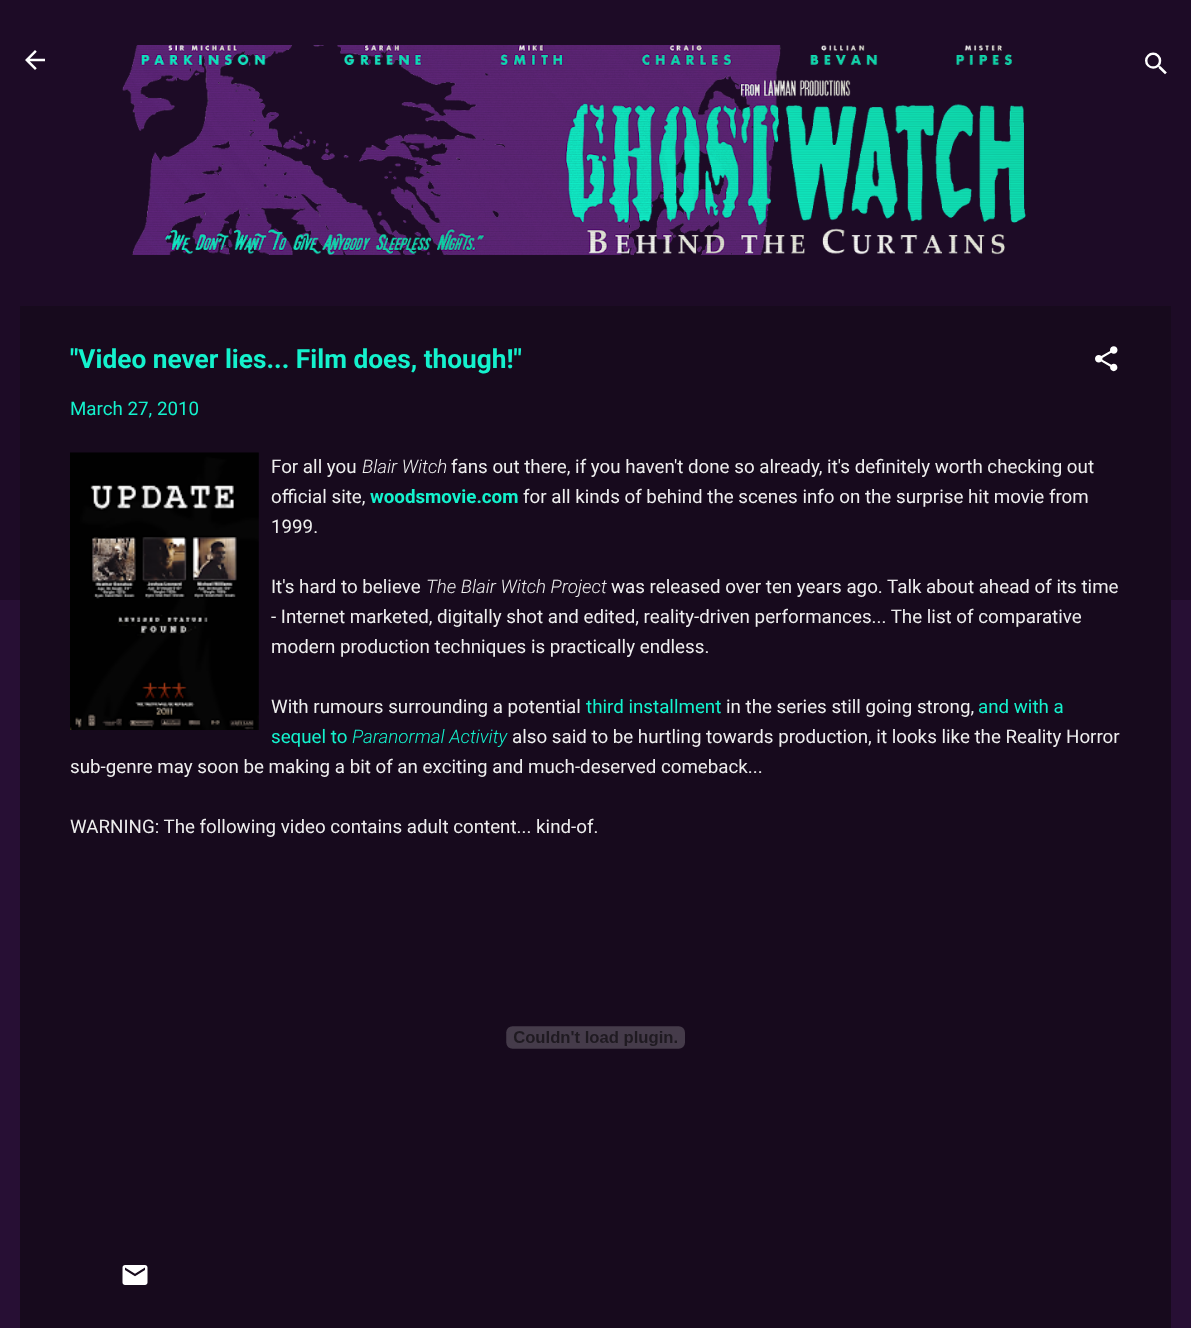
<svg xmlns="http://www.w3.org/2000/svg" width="1191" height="1328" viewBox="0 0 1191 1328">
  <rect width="100%" height="100%" fill="#270f34"/>
  <rect x="0" y="0" width="1191" height="600" fill="#1d0b26"/>
  <image x="25" y="50" width="20" height="20" href="img1.png"/>
  <image x="122" y="45" width="904" height="210" href="img2.png"/>
  <image x="1145" y="52" width="22" height="23" href="img3.png"/>
  <rect x="20" y="306" width="1151" height="1022" fill="#170a1d"/>
  <text x="70" y="368" font-family="Roboto" font-size="26.25" font-weight="bold" fill="#14f2cd">"Video never lies... Film does, though!"</text>
  <image x="1095" y="346" width="23" height="26" href="img4.png"/>
  <text x="70" y="415" font-family="Roboto" font-size="18.75" fill="#14f2cd">March 27, 2010</text>
  <image x="70" y="452" width="189" height="278" href="img5.png"/>
  <text x="271" y="473" font-family="Roboto" font-size="18.75" fill="#eeeeee">For all you</text>
  <text x="362" y="473" font-family="Roboto" font-size="18.75" font-weight="300" font-style="italic" fill="#eeeeee">Blair Witch</text>
  <text x="451" y="473" font-family="Roboto" font-size="18.75" fill="#eeeeee">fans out there, if you haven't done so already, it's definitely worth checking out</text>
  <text x="271" y="503" font-family="Roboto" font-size="18.75" fill="#eeeeee">official site,</text>
  <text x="370" y="503" font-family="Roboto" font-size="18.75" font-weight="bold" fill="#14f2cd">woodsmovie.com</text>
  <text x="523" y="503" font-family="Roboto" font-size="18.75" fill="#eeeeee">for all kinds of behind the scenes info on the surprise hit movie from</text>
  <text x="271" y="533" font-family="Roboto" font-size="18.75" fill="#eeeeee">1999.</text>
  <text x="271" y="593" font-family="Roboto" font-size="18.75" fill="#eeeeee">It's hard to believe</text>
  <text x="426" y="593" font-family="Roboto" font-size="18.75" font-weight="300" font-style="italic" fill="#eeeeee">The Blair Witch Project</text>
  <text x="611" y="593" font-family="Roboto" font-size="18.75" fill="#eeeeee">was released over ten years ago. Talk about ahead of its time</text>
  <text x="271" y="623" font-family="Roboto" font-size="18.75" fill="#eeeeee">- Internet marketed, digitally shot and edited, reality-driven performances... The list of comparative</text>
  <text x="271" y="653" font-family="Roboto" font-size="18.75" fill="#eeeeee">modern production techniques is practically endless.</text>
  <text x="271" y="713" font-family="Roboto" font-size="18.75" fill="#eeeeee">With rumours surrounding a potential</text>
  <text x="586" y="713" font-family="Roboto" font-size="18.75" fill="#14f2cd">third installment</text>
  <text x="726" y="713" font-family="Roboto" font-size="18.75" fill="#eeeeee">in the series still going strong,</text>
  <text x="978" y="713" font-family="Roboto" font-size="18.75" fill="#14f2cd">and with a</text>
  <text x="271" y="743" font-family="Roboto" font-size="18.75" fill="#14f2cd">sequel to</text>
  <text x="352" y="743" font-family="Roboto" font-size="18.75" font-weight="300" font-style="italic" fill="#14f2cd">Paranormal Activity</text>
  <text x="512" y="743" font-family="Roboto" font-size="18.75" fill="#eeeeee">also said to be hurtling towards production, it looks like the Reality Horror</text>
  <text x="70" y="773" font-family="Roboto" font-size="18.75" fill="#eeeeee">sub-genre may soon be making a bit of an exciting and much-deserved comeback...</text>
  <text x="70" y="833" font-family="Roboto" font-size="18.75" fill="#eeeeee">WARNING: The following video contains adult content... kind-of.</text>
  <image x="506" y="1026" width="179" height="23" href="img6.png"/>
  <image x="122" y="1265" width="26" height="20" href="img7.png"/>
</svg>
